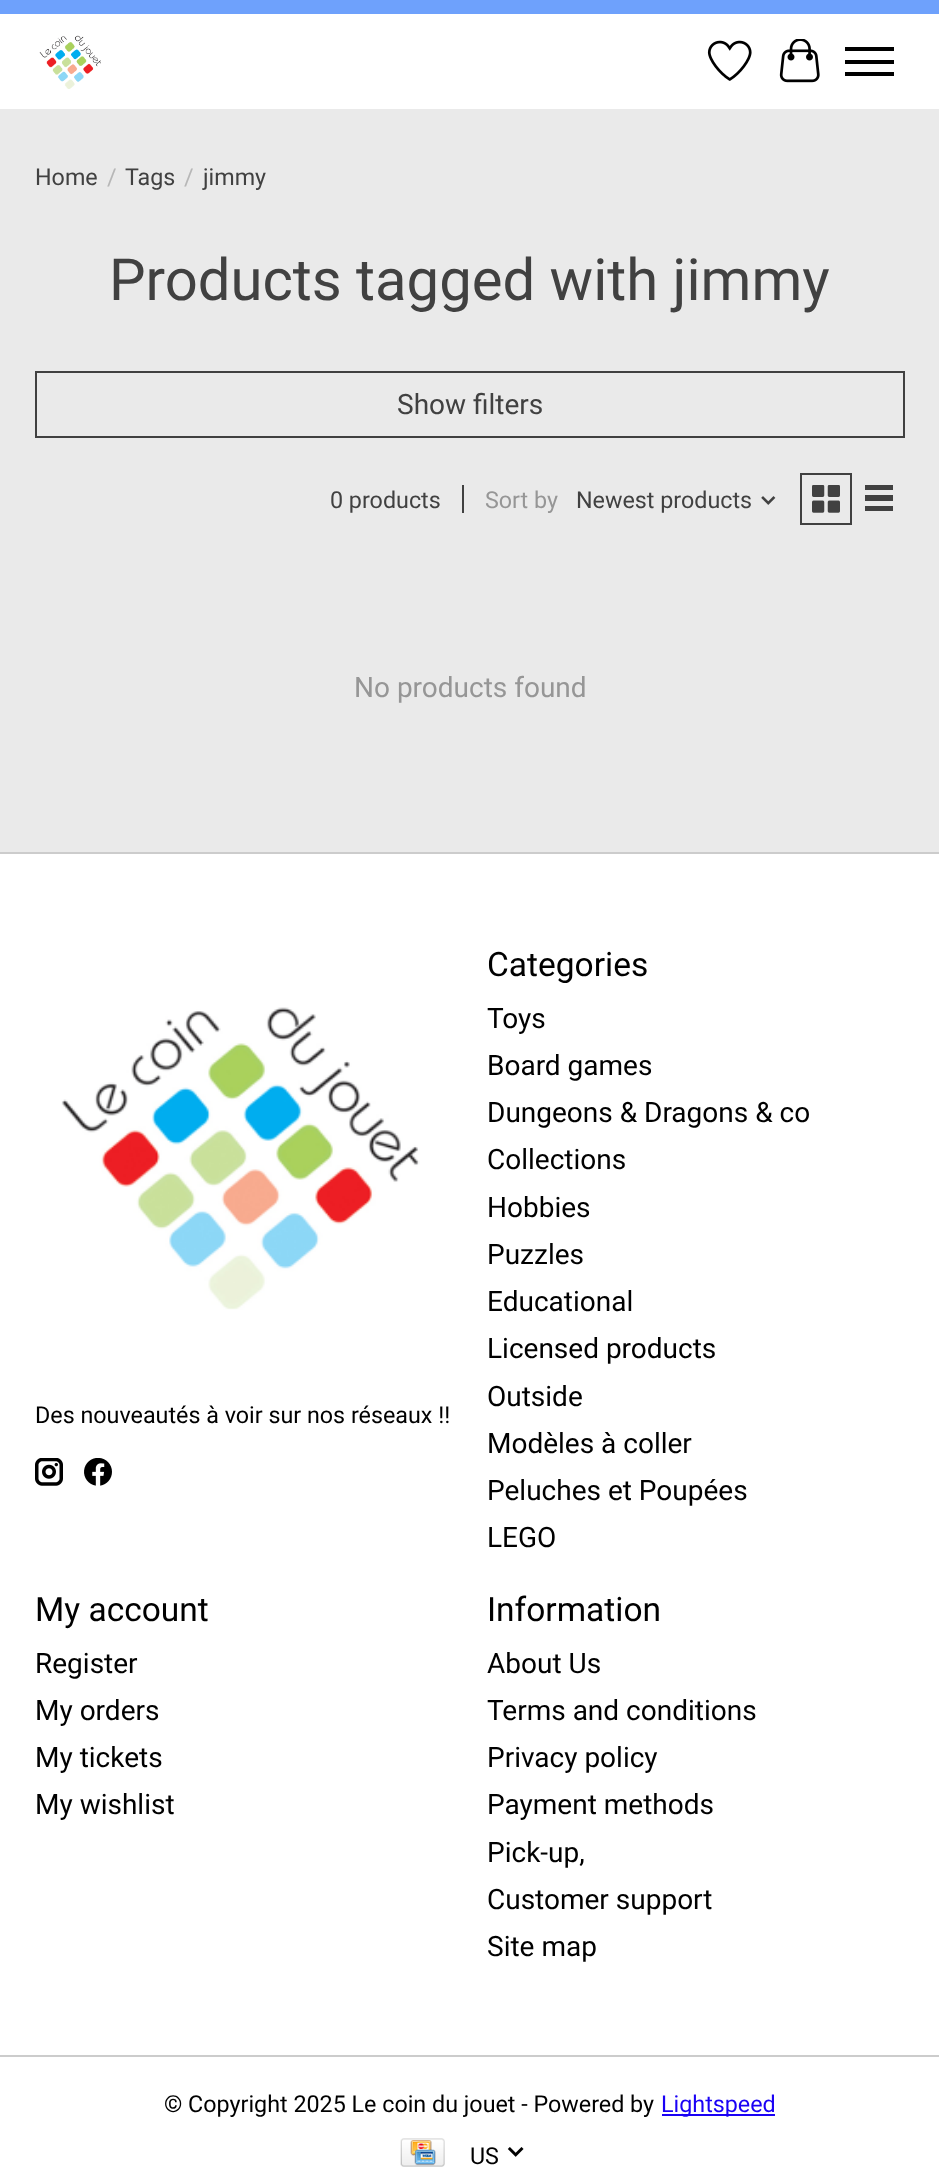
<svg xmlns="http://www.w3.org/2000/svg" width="939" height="2179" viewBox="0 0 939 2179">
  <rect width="100%" height="100%" fill="#eaeaea"/>
  <rect x="0" y="14" width="939" height="95" fill="#ffffff"/>
  <rect x="0" y="0" width="939" height="14" fill="#6ea1fc"/>
  <image x="39" y="35" width="62" height="54" href="img1.png"/>
  <image x="707" y="40" width="45" height="41" href="img2.png"/>
  <image x="779" y="39" width="41" height="44" href="img3.png"/>
  <rect x="845" y="60" width="49" height="4" fill="#000000"/>
  <rect x="845" y="47" width="49" height="4" fill="#000000"/>
  <rect x="845" y="72" width="49" height="4" fill="#000000"/>
  <text x="35" y="185" font-family="Roboto" font-size="23.3" fill="#414141">Home</text>
  <text x="107" y="185" font-family="Roboto" font-size="23.3" fill="#b7b7b7">/</text>
  <text x="125" y="185" font-family="Roboto" font-size="23.3" fill="#414141">Tags</text>
  <text x="184" y="185" font-family="Roboto" font-size="23.3" fill="#b7b7b7">/</text>
  <text x="203" y="185" font-family="Roboto" font-size="23.3" fill="#414141">jimmy</text>
  <text x="109" y="300" font-family="Roboto" font-size="58" fill="#414141">Products tagged with jimmy</text>
  <rect x="36" y="372" width="868" height="65" fill="none" stroke="#414141" stroke-width="2"/>
  <text x="397" y="414" font-family="Roboto" font-size="28" fill="#414141">Show filters</text>
  <text x="330" y="508" font-family="Roboto" font-size="23.3" fill="#414141">0 products</text>
  <rect x="462" y="485" width="2" height="28" fill="#414141"/>
  <text x="485" y="508" font-family="Roboto" font-size="23.3" fill="#969696">Sort by</text>
  <text x="576" y="508" font-family="Roboto" font-size="23.3" fill="#414141">Newest products</text>
  <image x="761" y="496" width="15" height="9" href="img4.png"/>
  <rect x="801" y="474" width="50" height="50" fill="none" stroke="#414141" stroke-width="2"/>
  <image x="812" y="485" width="28" height="28" href="img5.png"/>
  <rect x="865" y="485" width="28" height="5" fill="#414141"/>
  <rect x="865" y="495" width="28" height="6" fill="#414141"/>
  <rect x="865" y="506" width="28" height="5" fill="#414141"/>
  <text x="354" y="697" font-family="Roboto" font-size="28" fill="#969696">No products found</text>
  <rect x="0" y="854" width="939" height="1325" fill="#ffffff"/>
  <rect x="0" y="852" width="939" height="2" fill="#cccccc"/>
  <image x="61" y="1007" width="359" height="303" href="img6.png"/>
  <text x="35" y="1423" font-family="Roboto" font-size="23.3" fill="#000000">Des nouveautés à voir sur nos réseaux !!</text>
  <image x="35" y="1458" width="28" height="28" href="img7.png"/>
  <image x="84" y="1458" width="28" height="28" href="img8.png"/>
  <text x="487" y="976" font-family="Roboto" font-size="33.5" fill="#000000">Categories</text>
  <text x="487" y="1028" font-family="Roboto" font-size="28" fill="#000000">Toys</text>
  <text x="487" y="1075" font-family="Roboto" font-size="28" fill="#000000">Board games</text>
  <text x="487" y="1122" font-family="Roboto" font-size="28" fill="#000000">Dungeons &amp; Dragons &amp; co</text>
  <text x="487" y="1169" font-family="Roboto" font-size="28" fill="#000000">Collections</text>
  <text x="487" y="1217" font-family="Roboto" font-size="28" fill="#000000">Hobbies</text>
  <text x="487" y="1264" font-family="Roboto" font-size="28" fill="#000000">Puzzles</text>
  <text x="487" y="1311" font-family="Roboto" font-size="28" fill="#000000">Educational</text>
  <text x="487" y="1358" font-family="Roboto" font-size="28" fill="#000000">Licensed products</text>
  <text x="487" y="1406" font-family="Roboto" font-size="28" fill="#000000">Outside</text>
  <text x="487" y="1453" font-family="Roboto" font-size="28" fill="#000000">Modèles à coller</text>
  <text x="487" y="1500" font-family="Roboto" font-size="28" fill="#000000">Peluches et Poupées</text>
  <text x="487" y="1547" font-family="Roboto" font-size="28" fill="#000000">LEGO</text>
  <text x="35" y="1621" font-family="Roboto" font-size="33.5" fill="#000000">My account</text>
  <text x="35" y="1673" font-family="Roboto" font-size="28" fill="#000000">Register</text>
  <text x="35" y="1720" font-family="Roboto" font-size="28" fill="#000000">My orders</text>
  <text x="35" y="1767" font-family="Roboto" font-size="28" fill="#000000">My tickets</text>
  <text x="35" y="1814" font-family="Roboto" font-size="28" fill="#000000">My wishlist</text>
  <text x="487" y="1621" font-family="Roboto" font-size="33.5" fill="#000000">Information</text>
  <text x="487" y="1673" font-family="Roboto" font-size="28" fill="#000000">About Us</text>
  <text x="487" y="1720" font-family="Roboto" font-size="28" fill="#000000">Terms and conditions</text>
  <text x="487" y="1767" font-family="Roboto" font-size="28" fill="#000000">Privacy policy</text>
  <text x="487" y="1814" font-family="Roboto" font-size="28" fill="#000000">Payment methods</text>
  <text x="487" y="1862" font-family="Roboto" font-size="28" fill="#000000">Pick-up,</text>
  <text x="487" y="1909" font-family="Roboto" font-size="28" fill="#000000">Customer support</text>
  <text x="487" y="1956" font-family="Roboto" font-size="28" fill="#000000">Site map</text>
  <rect x="0" y="2055" width="939" height="2" fill="#cccccc"/>
  <text x="164" y="2112" font-family="Roboto" font-size="23.3" fill="#000000">© Copyright 2025 Le coin du jouet - Powered by</text>
  <rect x="662" y="2114" width="113" height="2" fill="#1a01f5"/>
  <text x="661" y="2112" font-family="Roboto" font-size="23.3" fill="#1a01f5">Lightspeed</text>
  <image x="400" y="2138" width="45" height="29" href="img9.png"/>
  <text x="470" y="2164" font-family="Roboto" font-size="23.3" fill="#000000">US</text>
  <image x="507" y="2147" width="17" height="10" href="img10.png"/>
</svg>
